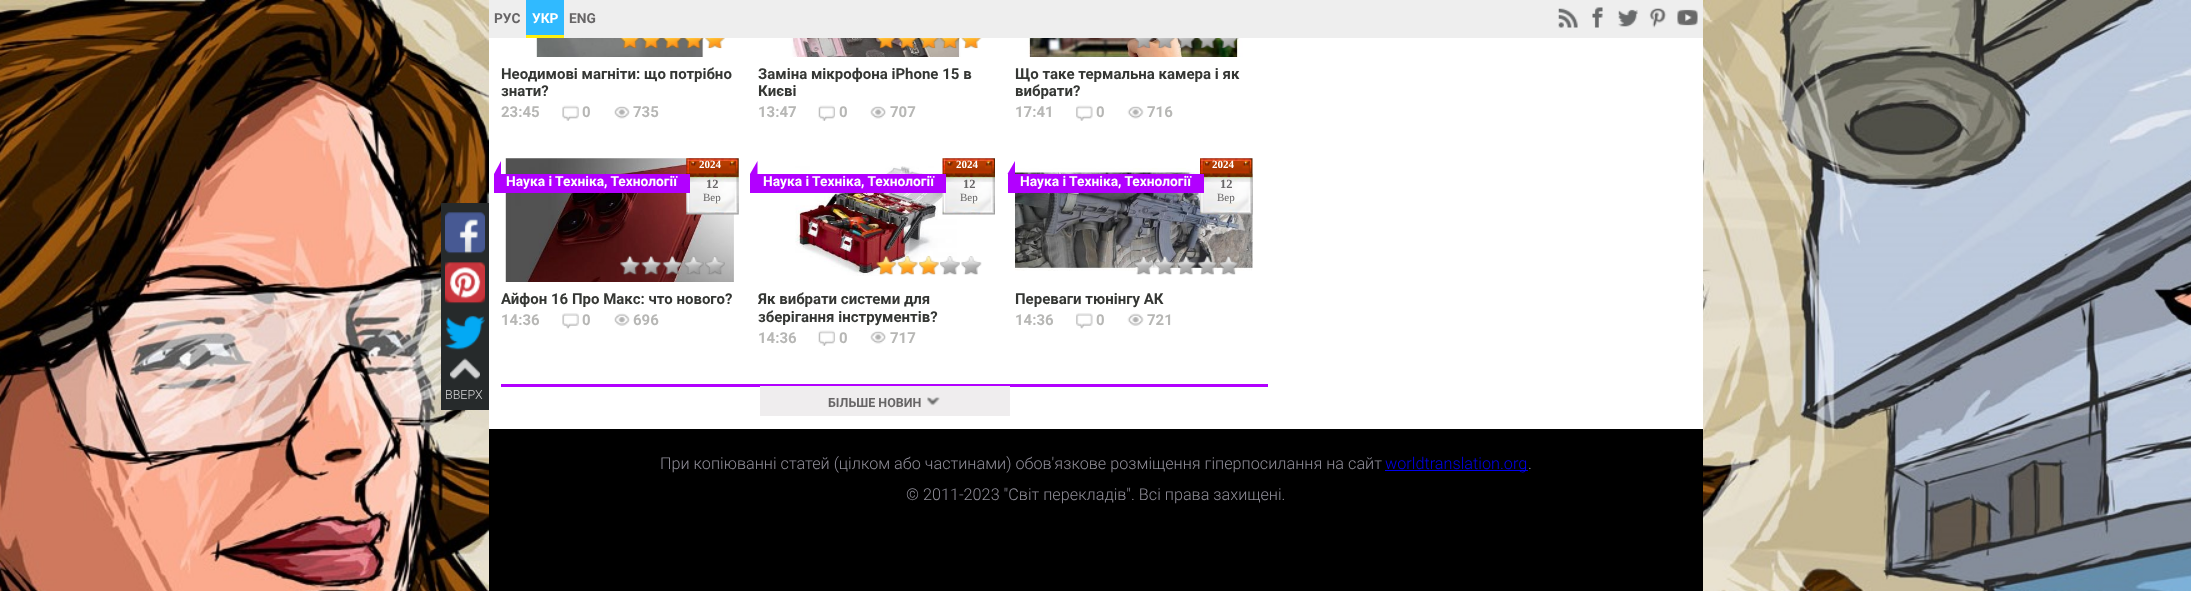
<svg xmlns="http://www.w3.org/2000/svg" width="2191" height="591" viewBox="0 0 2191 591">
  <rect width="100%" height="100%" fill="#ffffff"/>
  <image x="0" y="0" width="489" height="591" href="img1.png"/>
  <image x="1703" y="0" width="488" height="591" href="img2.png"/>
  <rect x="489" y="0" width="1214" height="38" fill="#eeeeee"/>
  <text x="494" y="23" font-family="Roboto" font-size="13.75" font-weight="bold" fill="#676566">РУС</text>
  <rect x="526" y="0" width="38" height="35" fill="#30baff"/>
  <rect x="526" y="35" width="38" height="3" fill="#ffef0e"/>
  <text x="532" y="23" font-family="Roboto" font-size="13.75" font-weight="bold" fill="#ffffff">УКР</text>
  <text x="569" y="23" font-family="Roboto" font-size="13.75" font-weight="bold" fill="#676566">ENG</text>
  <image x="1558" y="8" width="20" height="20" href="img3.png"/>
  <image x="1592" y="7" width="11" height="21" href="img4.png"/>
  <image x="1618" y="9" width="20" height="18" href="img5.png"/>
  <image x="1649" y="8" width="18" height="20" href="img6.png"/>
  <image x="1677" y="9" width="21" height="17" href="img7.png"/>
  <rect x="441" y="203" width="48" height="207" fill="#262a2b"/>
  <image x="445" y="212" width="40" height="42" href="img8.png"/>
  <image x="445" y="262" width="40" height="42" href="img9.png"/>
  <image x="445" y="315" width="40" height="35" href="img10.png"/>
  <image x="450" y="358" width="30" height="22" href="img11.png"/>
  <text x="445" y="399" font-family="Roboto" font-size="12.5" font-weight="300" fill="#d4d4d5">ВВЕРХ</text>
  <image x="536" y="38" width="168" height="19" href="img12.png"/>
  <image x="620" y="38" width="20" height="11" href="img13.png"/>
  <image x="641" y="38" width="21" height="11" href="img14.png"/>
  <image x="662" y="38" width="21" height="11" href="img15.png"/>
  <image x="684" y="38" width="20" height="11" href="img16.png"/>
  <image x="705" y="38" width="20" height="11" href="img17.png"/>
  <text x="501" y="79" font-family="Roboto" font-size="15" font-weight="bold" fill="#353734">Неодимові магніти: що потрібно</text>
  <text x="501" y="96" font-family="Roboto" font-size="15" font-weight="bold" fill="#353734">знати?</text>
  <text x="501" y="117" font-family="Roboto" font-size="15" font-weight="bold" fill="#b7b7b5">23:45</text>
  <image x="562" y="105" width="17" height="16" href="img18.png"/>
  <text x="582" y="117" font-family="Roboto" font-size="15" font-weight="bold" fill="#b7b7b5">0</text>
  <image x="614" y="106" width="16" height="13" href="img19.png"/>
  <text x="633" y="117" font-family="Roboto" font-size="15" font-weight="bold" fill="#b7b7b5">735</text>
  <image x="790" y="38" width="172" height="19" href="img20.png"/>
  <image x="876" y="38" width="21" height="11" href="img21.png"/>
  <image x="897" y="38" width="21" height="11" href="img22.png"/>
  <image x="919" y="38" width="20" height="11" href="img23.png"/>
  <image x="940" y="38" width="20" height="11" href="img24.png"/>
  <image x="961" y="38" width="21" height="11" href="img25.png"/>
  <text x="758" y="79" font-family="Roboto" font-size="15" font-weight="bold" fill="#353734">Заміна мікрофона iPhone 15 в</text>
  <text x="758" y="96" font-family="Roboto" font-size="15" font-weight="bold" fill="#353734">Києві</text>
  <text x="758" y="117" font-family="Roboto" font-size="15" font-weight="bold" fill="#b7b7b5">13:47</text>
  <image x="818" y="105" width="17" height="16" href="img26.png"/>
  <text x="839" y="117" font-family="Roboto" font-size="15" font-weight="bold" fill="#b7b7b5">0</text>
  <image x="870" y="106" width="16" height="13" href="img27.png"/>
  <text x="890" y="117" font-family="Roboto" font-size="15" font-weight="bold" fill="#b7b7b5">707</text>
  <image x="1025" y="38" width="218" height="19" href="img28.png"/>
  <image x="1134" y="38" width="20" height="11" href="img29.png"/>
  <image x="1155" y="38" width="20" height="11" href="img30.png"/>
  <image x="1176" y="38" width="21" height="11" href="img31.png"/>
  <image x="1197" y="38" width="21" height="11" href="img32.png"/>
  <image x="1219" y="38" width="20" height="11" href="img33.png"/>
  <text x="1015" y="79" font-family="Roboto" font-size="15" font-weight="bold" fill="#353734">Що таке термальна камера і як</text>
  <text x="1015" y="96" font-family="Roboto" font-size="15" font-weight="bold" fill="#353734">вибрати?</text>
  <text x="1015" y="117" font-family="Roboto" font-size="15" font-weight="bold" fill="#b7b7b5">17:41</text>
  <image x="1076" y="105" width="17" height="16" href="img34.png"/>
  <text x="1096" y="117" font-family="Roboto" font-size="15" font-weight="bold" fill="#b7b7b5">0</text>
  <image x="1127" y="106" width="17" height="13" href="img35.png"/>
  <text x="1147" y="117" font-family="Roboto" font-size="15" font-weight="bold" fill="#b7b7b5">716</text>
  <image x="505" y="158" width="229" height="124" href="img36.png"/>
  <image x="686" y="158" width="53" height="57" href="img37.png"/>
  <rect x="494" y="174" width="196" height="19" fill="#b200ff"/>
  <path d="M501 174H494L501 161Z" fill="#b200ff"/>
  <text x="506" y="186" font-family="Roboto" font-size="13.75" font-weight="bold" fill="#ffffff">Наука і Техніка, Технології</text>
  <text x="699" y="168" font-family="Liberation Serif" font-size="11" font-weight="bold" fill="#ffffff">2024</text>
  <text x="706" y="188" font-family="Liberation Serif" font-size="12.5" font-weight="bold" fill="#676566">12</text>
  <text x="703" y="201" font-family="Liberation Serif" font-size="11" fill="#676566">Вер</text>
  <image x="620" y="255" width="20" height="20" href="img38.png"/>
  <image x="641" y="256" width="21" height="19" href="img39.png"/>
  <image x="662" y="256" width="21" height="19" href="img40.png"/>
  <image x="684" y="256" width="20" height="19" href="img41.png"/>
  <image x="705" y="256" width="20" height="19" href="img42.png"/>
  <text x="501" y="304" font-family="Roboto" font-size="15" font-weight="bold" fill="#353734">Айфон 16 Про Макс: что нового?</text>
  <text x="501" y="325" font-family="Roboto" font-size="15" font-weight="bold" fill="#b7b7b5">14:36</text>
  <image x="562" y="313" width="17" height="16" href="img43.png"/>
  <text x="582" y="325" font-family="Roboto" font-size="15" font-weight="bold" fill="#b7b7b5">0</text>
  <image x="614" y="313" width="16" height="13" href="img44.png"/>
  <text x="633" y="325" font-family="Roboto" font-size="15" font-weight="bold" fill="#b7b7b5">696</text>
  <image x="795" y="166" width="162" height="110" href="img45.png"/>
  <image x="942" y="158" width="53" height="57" href="img46.png"/>
  <text x="956" y="168" font-family="Liberation Serif" font-size="11" font-weight="bold" fill="#ffffff">2024</text>
  <text x="963" y="188" font-family="Liberation Serif" font-size="12.5" font-weight="bold" fill="#676566">12</text>
  <text x="960" y="201" font-family="Liberation Serif" font-size="11" fill="#676566">Вер</text>
  <rect x="750" y="174" width="196" height="19" fill="#b200ff"/>
  <path d="M757.5 174H750L757.5 161Z" fill="#b200ff"/>
  <text x="763" y="186" font-family="Roboto" font-size="13.75" font-weight="bold" fill="#ffffff">Наука і Техніка, Технології</text>
  <image x="876" y="256" width="21" height="19" href="img47.png"/>
  <image x="897" y="255" width="21" height="20" href="img48.png"/>
  <image x="918" y="255" width="21" height="20" href="img49.png"/>
  <image x="940" y="256" width="20" height="19" href="img50.png"/>
  <image x="961" y="256" width="21" height="19" href="img51.png"/>
  <text x="758" y="304" font-family="Roboto" font-size="15" font-weight="bold" fill="#353734">Як вибрати системи для</text>
  <text x="758" y="322" font-family="Roboto" font-size="15" font-weight="bold" fill="#353734">зберігання інструментів?</text>
  <text x="758" y="343" font-family="Roboto" font-size="15" font-weight="bold" fill="#b7b7b5">14:36</text>
  <image x="818" y="330" width="17" height="16" href="img26.png"/>
  <text x="839" y="343" font-family="Roboto" font-size="15" font-weight="bold" fill="#b7b7b5">0</text>
  <image x="870" y="331" width="16" height="13" href="img27.png"/>
  <text x="890" y="343" font-family="Roboto" font-size="15" font-weight="bold" fill="#b7b7b5">717</text>
  <image x="1015" y="168" width="238" height="103" href="img53.png"/>
  <image x="1200" y="158" width="53" height="57" href="img52.png"/>
  <text x="1212" y="168" font-family="Liberation Serif" font-size="11" font-weight="bold" fill="#ffffff">2024</text>
  <text x="1220" y="188" font-family="Liberation Serif" font-size="12.5" font-weight="bold" fill="#676566">12</text>
  <text x="1217" y="201" font-family="Liberation Serif" font-size="11" fill="#676566">Вер</text>
  <rect x="1008" y="174" width="196" height="19" fill="#b200ff"/>
  <path d="M1015 174H1007.5L1015 161Z" fill="#b200ff"/>
  <text x="1020" y="186" font-family="Roboto" font-size="13.75" font-weight="bold" fill="#ffffff">Наука і Техніка, Технології</text>
  <image x="1134" y="256" width="20" height="19" href="img54.png"/>
  <image x="1155" y="256" width="20" height="19" href="img55.png"/>
  <image x="1176" y="256" width="21" height="19" href="img56.png"/>
  <image x="1197" y="256" width="21" height="19" href="img57.png"/>
  <image x="1219" y="256" width="20" height="19" href="img58.png"/>
  <text x="1015" y="304" font-family="Roboto" font-size="15" font-weight="bold" fill="#353734">Переваги тюнінгу АК</text>
  <text x="1015" y="325" font-family="Roboto" font-size="15" font-weight="bold" fill="#b7b7b5">14:36</text>
  <image x="1076" y="313" width="17" height="16" href="img59.png"/>
  <text x="1096" y="325" font-family="Roboto" font-size="15" font-weight="bold" fill="#b7b7b5">0</text>
  <image x="1127" y="313" width="17" height="13" href="img60.png"/>
  <text x="1147" y="325" font-family="Roboto" font-size="15" font-weight="bold" fill="#b7b7b5">721</text>
  <rect x="501" y="384" width="767" height="3" fill="#b200ff"/>
  <rect x="760" y="386" width="250" height="30" fill="#efedee"/>
  <text x="828" y="407" font-family="Roboto" font-size="12.5" font-weight="bold" fill="#676566">БІЛЬШЕ НОВИН</text>
  <image x="927" y="397" width="13" height="9" href="img61.png"/>
  <rect x="489" y="429" width="1214" height="162" fill="#000000"/>
  <text x="660" y="469" font-family="Roboto" font-size="16.25" font-weight="300" fill="#8f8d98">При копіюванні статей (цілком або частинами) обов'язкове розміщення гіперпосилання на сайт</text>
  <rect x="1385" y="470" width="143" height="1" fill="#0000ee"/>
  <text x="1385" y="469" font-family="Roboto" font-size="16.25" font-weight="300" fill="#0000ee">worldtranslation.org</text>
  <text x="1528" y="469" font-family="Roboto" font-size="16.25" font-weight="300" fill="#8f8d98">.</text>
  <text x="906" y="500" font-family="Roboto" font-size="16.25" font-weight="300" fill="#8f8d98">© 2011-2023 "Світ перекладів". Всі права захищені.</text>
</svg>
